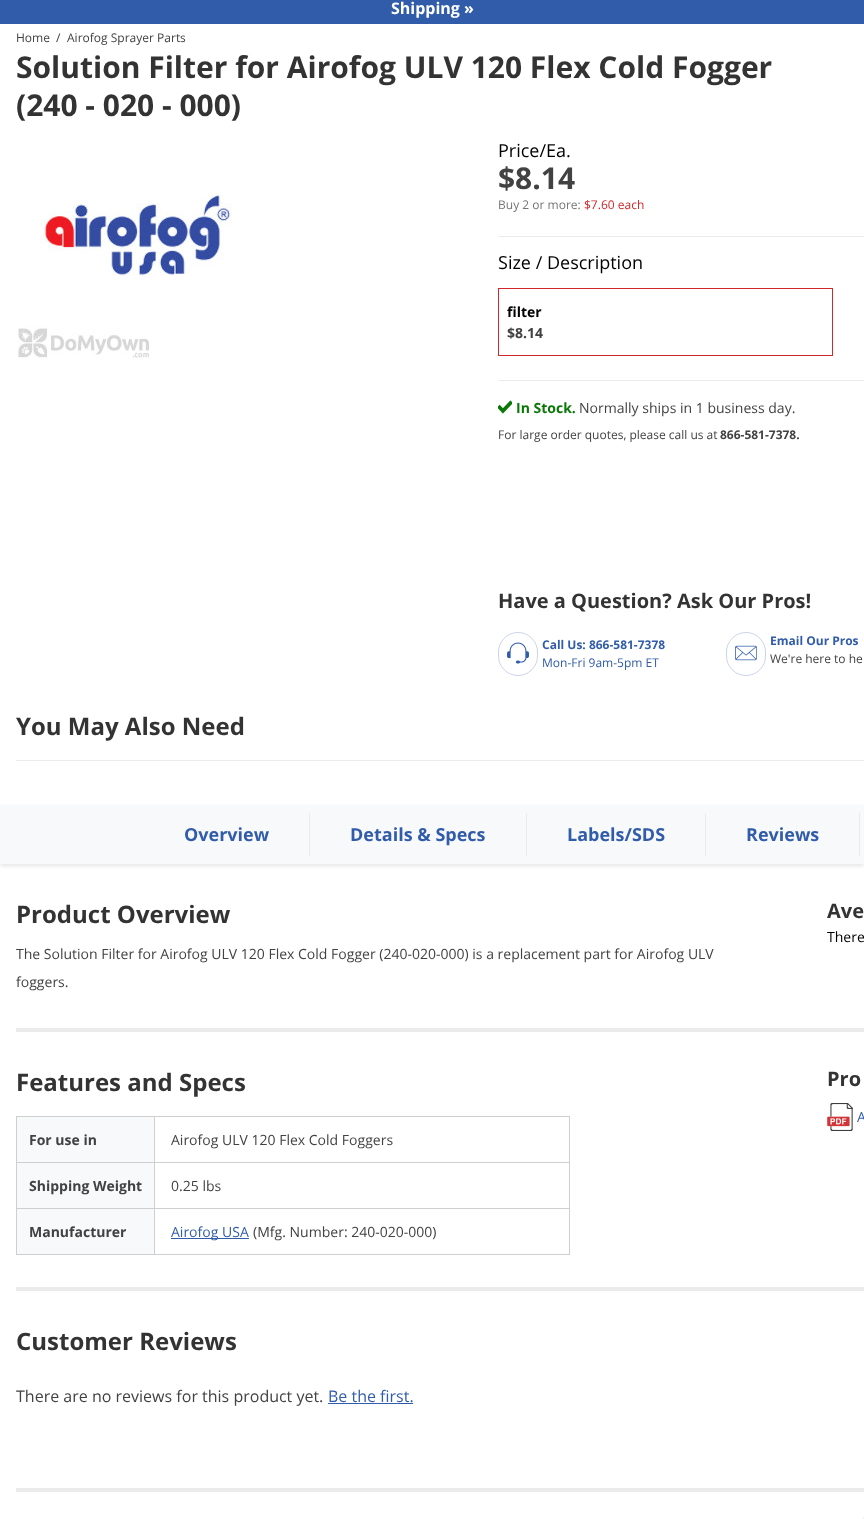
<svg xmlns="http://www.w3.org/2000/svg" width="864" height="1519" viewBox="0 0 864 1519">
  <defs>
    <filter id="blur1" x="-50%" y="-200%" width="200%" height="500%"><feGaussianBlur stdDeviation="2"/></filter>
  </defs>
  <rect width="100%" height="100%" fill="#ffffff"/>
  <rect x="0" y="0" width="864" height="24" fill="#315caa"/>
  <text x="391" y="14" font-family="Open Sans" font-size="16" font-weight="bold" fill="#ffffff">Shipping »</text>
  <text x="16" y="42" font-family="Open Sans" font-size="12" fill="#424242">Home</text>
  <text x="56" y="42" font-family="Open Sans" font-size="12" fill="#424242">/</text>
  <text x="67" y="42" font-family="Open Sans" font-size="12" fill="#424242">Airofog Sprayer Parts</text>
  <text x="16" y="78" font-family="Open Sans" font-size="30" font-weight="bold" fill="#333333">Solution Filter for Airofog ULV 120 Flex Cold Fogger</text>
  <text x="16" y="116" font-family="Open Sans" font-size="30" font-weight="bold" fill="#333333">(240 - 020 - 000)</text>
  <image x="18" y="195" width="214" height="164" href="img1.png"/>
  <text x="498" y="157" font-family="Open Sans" font-size="18" fill="#000000">Price/Ea.</text>
  <text x="498" y="189" font-family="Open Sans" font-size="30" font-weight="bold" fill="#424242">$8.14</text>
  <text x="498" y="209" font-family="Open Sans" font-size="12" fill="#757575">Buy 2 or more:</text>
  <text x="584" y="209" font-family="Open Sans" font-size="12" fill="#d2272a">$7.60 each</text>
  <rect x="498" y="236" width="366" height="1" fill="#ebebeb"/>
  <text x="498" y="269" font-family="Open Sans" font-size="18" fill="#000000">Size / Description</text>
  <rect x="498" y="380" width="366" height="1" fill="#ebebeb"/>
  <rect x="498.5" y="288.5" width="334" height="67" fill="none" stroke="#d2272a"/>
  <text x="507" y="317" font-family="Open Sans" font-size="14" font-weight="bold" fill="#000000">filter</text>
  <text x="507" y="338" font-family="Open Sans" font-size="14" font-weight="bold" fill="#424242">$8.14</text>
  <image x="498" y="400" width="14" height="14" href="img2.png"/>
  <text x="516" y="413" font-family="Open Sans" font-size="14" font-weight="bold" fill="#0a7806">In Stock.</text>
  <text x="579" y="413" font-family="Open Sans" font-size="14" fill="#424242">Normally ships in 1 business day.</text>
  <text x="498" y="439" font-family="Open Sans" font-size="12" fill="#424242">For large order quotes, please call us at</text>
  <text x="720" y="439" font-family="Open Sans" font-size="12" font-weight="bold" fill="#424242">866-581-7378.</text>
  <text x="498" y="608" font-family="Open Sans" font-size="20" font-weight="bold" fill="#333333">Have a Question? Ask Our Pros!</text>
  <rect x="498.5" y="632.5" width="39" height="43" rx="19.5" fill="none" stroke="#ccd4e8"/>
  <image x="507" y="642" width="22" height="22" href="img3.png"/>
  <text x="542" y="649" font-family="Open Sans" font-size="12" font-weight="bold" fill="#315caa">Call Us: 866-581-7378</text>
  <text x="542" y="667" font-family="Open Sans" font-size="12" fill="#315caa">Mon-Fri 9am-5pm ET</text>
  <rect x="726.5" y="632.5" width="39" height="43" rx="19.5" fill="none" stroke="#ccd4e8"/>
  <image x="735" y="645" width="22" height="16" href="img4.png"/>
  <text x="770" y="645" font-family="Open Sans" font-size="12" font-weight="bold" fill="#315caa">Email Our Pros</text>
  <text x="770" y="663" font-family="Open Sans" font-size="12" fill="#424242">We're here to he</text>
  <text x="16" y="735" font-family="Open Sans" font-size="24" font-weight="bold" fill="#333333">You May Also Need</text>
  <rect x="16" y="760" width="848" height="1" fill="#ebebeb"/>
  <rect x="0" y="807" width="864" height="59" fill="#000000" fill-opacity="0.1" filter="url(#blur1)"/>
  <rect x="0" y="805" width="864" height="59" fill="#f8f9fa"/>
  <rect x="309" y="813" width="1" height="43" fill="#ebebeb"/>
  <text x="184" y="841" font-family="Open Sans" font-size="18" font-weight="bold" fill="#315caa">Overview</text>
  <rect x="526" y="813" width="1" height="43" fill="#ebebeb"/>
  <text x="350" y="841" font-family="Open Sans" font-size="18" font-weight="bold" fill="#315caa">Details &amp; Specs</text>
  <rect x="705" y="813" width="1" height="43" fill="#ebebeb"/>
  <text x="567" y="841" font-family="Open Sans" font-size="18" font-weight="bold" fill="#315caa">Labels/SDS</text>
  <rect x="859" y="813" width="1" height="43" fill="#ebebeb"/>
  <text x="746" y="841" font-family="Open Sans" font-size="18" font-weight="bold" fill="#315caa">Reviews</text>
  <rect x="16" y="1028" width="848" height="4" fill="#ebebeb"/>
  <text x="16" y="923" font-family="Open Sans" font-size="24" font-weight="bold" fill="#333333">Product Overview</text>
  <text x="16" y="959" font-family="Open Sans" font-size="14" fill="#424242">The Solution Filter for Airofog ULV 120 Flex Cold Fogger (240-020-000) is a replacement part for Airofog ULV</text>
  <text x="16" y="987" font-family="Open Sans" font-size="14" fill="#424242">foggers.</text>
  <text x="827" y="918" font-family="Open Sans" font-size="20" font-weight="bold" fill="#333333">Ave</text>
  <text x="827" y="942" font-family="Open Sans" font-size="14" fill="#000000">There</text>
  <text x="16" y="1091" font-family="Open Sans" font-size="24" font-weight="bold" fill="#333333">Features and Specs</text>
  <rect x="17" y="1117" width="137" height="45" fill="#f8f9fa"/>
  <rect x="154" y="1116" width="416" height="1" fill="#cfcfcf"/>
  <rect x="154" y="1162" width="416" height="1" fill="#cfcfcf"/>
  <rect x="154" y="1208" width="416" height="1" fill="#cfcfcf"/>
  <rect x="569" y="1208" width="1" height="47" fill="#cfcfcf"/>
  <rect x="154" y="1254" width="416" height="1" fill="#cfcfcf"/>
  <rect x="154" y="1208" width="1" height="47" fill="#cfcfcf"/>
  <rect x="16" y="1208" width="139" height="1" fill="#cfcfcf"/>
  <rect x="154" y="1162" width="1" height="47" fill="#cfcfcf"/>
  <rect x="16" y="1162" width="139" height="1" fill="#cfcfcf"/>
  <rect x="154" y="1116" width="1" height="47" fill="#cfcfcf"/>
  <rect x="16" y="1116" width="139" height="1" fill="#cfcfcf"/>
  <rect x="16" y="1254" width="139" height="1" fill="#cfcfcf"/>
  <rect x="16" y="1208" width="1" height="47" fill="#cfcfcf"/>
  <rect x="16" y="1162" width="1" height="47" fill="#cfcfcf"/>
  <rect x="16" y="1116" width="1" height="47" fill="#cfcfcf"/>
  <text x="29" y="1145" font-family="Open Sans" font-size="14" font-weight="bold" fill="#424242">For use in</text>
  <rect x="569" y="1162" width="1" height="47" fill="#cfcfcf"/>
  <rect x="569" y="1116" width="1" height="47" fill="#cfcfcf"/>
  <text x="171" y="1145" font-family="Open Sans" font-size="14" fill="#424242">Airofog ULV 120 Flex Cold Foggers</text>
  <rect x="17" y="1163" width="137" height="45" fill="#f8f9fa"/>
  <text x="29" y="1191" font-family="Open Sans" font-size="14" font-weight="bold" fill="#424242">Shipping Weight</text>
  <text x="171" y="1191" font-family="Open Sans" font-size="14" fill="#424242">0.25 lbs</text>
  <rect x="17" y="1209" width="137" height="45" fill="#f8f9fa"/>
  <text x="29" y="1237" font-family="Open Sans" font-size="14" font-weight="bold" fill="#424242">Manufacturer</text>
  <rect x="171" y="1238" width="78" height="1" fill="#315caa"/>
  <text x="171" y="1237" font-family="Open Sans" font-size="14" fill="#315caa">Airofog USA</text>
  <text x="253" y="1237" font-family="Open Sans" font-size="14" fill="#424242">(Mfg. Number: 240-020-000)</text>
  <text x="827" y="1086" font-family="Open Sans" font-size="20" font-weight="bold" fill="#333333">Pro</text>
  <image x="827" y="1103" width="26" height="28" href="img5.png"/>
  <text x="857" y="1122" font-family="Open Sans" font-size="14" fill="#315caa">A</text>
  <rect x="16" y="1287" width="848" height="4" fill="#ebebeb"/>
  <rect x="16" y="1488" width="848" height="4" fill="#ebebeb"/>
  <text x="16" y="1350" font-family="Open Sans" font-size="24" font-weight="bold" fill="#333333">Customer Reviews</text>
  <text x="16" y="1402" font-family="Open Sans" font-size="16" fill="#424242">There are no reviews for this product yet.</text>
  <text x="328" y="1402" font-family="Open Sans" font-size="16" fill="#315caa">Be the first.</text>
  <rect x="328" y="1403" width="85" height="1" fill="#315caa"/>
  <rect x="862" y="1517" width="2" height="2" fill="#f5f5f5"/>
</svg>
